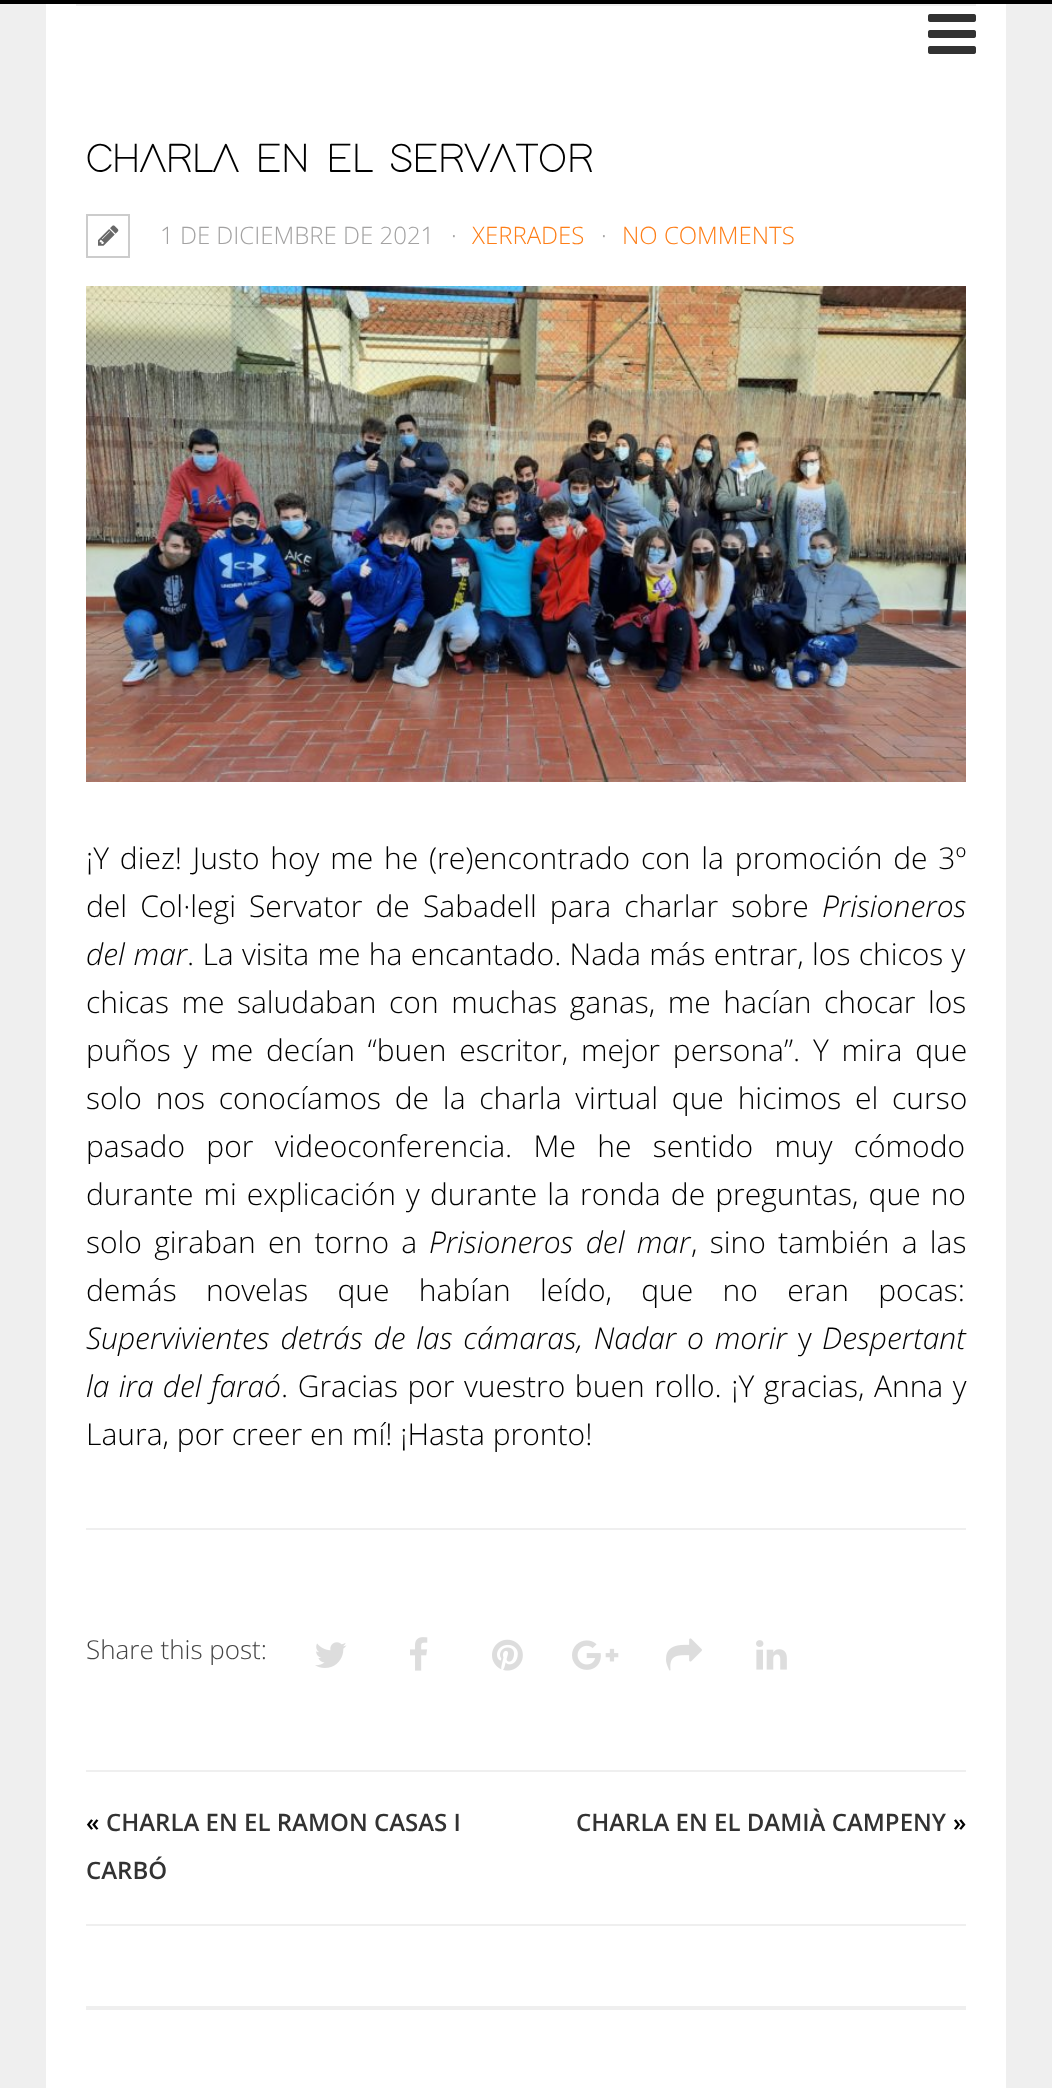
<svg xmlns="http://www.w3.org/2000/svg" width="1052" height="2088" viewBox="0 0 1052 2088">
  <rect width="100%" height="100%" fill="#efefef"/>
  <rect x="0" y="0" width="1052" height="4" fill="#000000"/>
  <rect x="46" y="4" width="960" height="2084" fill="#ffffff"/>
  <image x="928" y="14" width="48" height="40" href="img1.png"/>
  <rect x="76" y="4" width="900" height="2" fill="#efefef"/>
  <rect x="86" y="1528" width="880" height="2" fill="#efefef"/>
  <text x="86" y="172" font-family="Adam" font-size="40" font-weight="bold" fill="#000000">CHARLA EN EL SERVATOR</text>
  <rect x="87" y="215" width="42" height="42" fill="none" stroke="#cccccc" stroke-width="2"/>
  <image x="98" y="225" width="21" height="21" href="img2.png"/>
  <text x="160" y="244" font-family="Open Sans" font-size="24" font-weight="300" fill="#a3a2a2">1 DE DICIEMBRE DE 2021</text>
  <text x="451" y="244" font-family="Open Sans" font-size="24" font-weight="300" fill="#a3a2a2">·</text>
  <text x="472" y="244" font-family="Open Sans" font-size="24" font-weight="300" fill="#fe7e17">XERRADES</text>
  <text x="601" y="244" font-family="Open Sans" font-size="24" font-weight="300" fill="#a3a2a2">·</text>
  <text x="622" y="244" font-family="Open Sans" font-size="24" font-weight="300" fill="#fe7e17">NO COMMENTS</text>
  <image x="86" y="286" width="880" height="496" href="img3.png"/>
  <text x="86" y="869" word-spacing="3" font-family="Open Sans" font-size="30" font-weight="300" fill="#000000">¡Y diez! Justo hoy me he (re)encontrado con la promoción de 3º</text>
  <text x="86" y="917" word-spacing="5.25" font-family="Open Sans" font-size="30" font-weight="300" fill="#000000">del Col·legi Servator de Sabadell para charlar sobre</text>
  <text x="822" y="917" font-family="Open Sans" font-size="30" font-weight="300" font-style="italic" fill="#000000">Prisioneros</text>
  <text x="86" y="965" word-spacing="1" font-family="Open Sans" font-size="30" font-weight="300" font-style="italic" fill="#000000">del mar</text>
  <text x="187" y="965" word-spacing="0.5" font-family="Open Sans" font-size="30" font-weight="300" fill="#000000">. La visita me ha encantado. Nada más entrar, los chicos y</text>
  <text x="86" y="1013" word-spacing="4.75" font-family="Open Sans" font-size="30" font-weight="300" fill="#000000">chicas me saludaban con muchas ganas, me hacían chocar los</text>
  <text x="86" y="1061" word-spacing="5" font-family="Open Sans" font-size="30" font-weight="300" fill="#000000">puños y me decían “buen escritor, mejor persona”. Y mira que</text>
  <text x="86" y="1109" word-spacing="6" font-family="Open Sans" font-size="30" font-weight="300" fill="#000000">solo nos conocíamos de la charla virtual que hicimos el curso</text>
  <text x="86" y="1157" word-spacing="13.5" font-family="Open Sans" font-size="30" font-weight="300" fill="#000000">pasado por videoconferencia. Me he sentido muy cómodo</text>
  <text x="86" y="1205" word-spacing="2.25" font-family="Open Sans" font-size="30" font-weight="300" fill="#000000">durante mi explicación y durante la ronda de preguntas, que no</text>
  <text x="86" y="1253" word-spacing="4.5" font-family="Open Sans" font-size="30" font-weight="300" fill="#000000">solo giraban en torno a</text>
  <text x="429" y="1253" word-spacing="4.5" font-family="Open Sans" font-size="30" font-weight="300" font-style="italic" fill="#000000">Prisioneros del mar</text>
  <text x="691" y="1253" word-spacing="4.5" font-family="Open Sans" font-size="30" font-weight="300" fill="#000000">, sino también a las</text>
  <text x="86" y="1301" word-spacing="21.5" font-family="Open Sans" font-size="30" font-weight="300" fill="#000000">demás novelas que habían leído, que no eran pocas:</text>
  <text x="86" y="1349" word-spacing="3" font-family="Open Sans" font-size="30" font-weight="300" font-style="italic" fill="#000000">Supervivientes detrás de las cámaras, Nadar o morir</text>
  <text x="798" y="1349" font-family="Open Sans" font-size="30" font-weight="300" fill="#000000">y</text>
  <text x="822" y="1349" font-family="Open Sans" font-size="30" font-weight="300" font-style="italic" fill="#000000">Despertant</text>
  <text x="86" y="1397" word-spacing="1.5" font-family="Open Sans" font-size="30" font-weight="300" font-style="italic" fill="#000000">la ira del faraó</text>
  <text x="281" y="1397" word-spacing="1.75" font-family="Open Sans" font-size="30" font-weight="300" fill="#000000">. Gracias por vuestro buen rollo. ¡Y gracias, Anna y</text>
  <text x="86" y="1445" font-family="Open Sans" font-size="30" font-weight="300" fill="#000000">Laura, por creer en mí! ¡Hasta pronto!</text>
  <text x="86" y="1659" font-family="Open Sans" font-size="26" font-weight="300" fill="#444444">Share this post:</text>
  <image x="315" y="1642" width="32" height="26" href="img4.png"/>
  <image x="410" y="1637" width="18" height="34" href="img5.png"/>
  <image x="492" y="1639" width="31" height="32" href="img6.png"/>
  <image x="572" y="1640" width="47" height="30" href="img7.png"/>
  <image x="666" y="1638" width="36" height="33" href="img8.png"/>
  <image x="756" y="1640" width="31" height="30" href="img9.png"/>
  <rect x="86" y="1770" width="880" height="2" fill="#efefef"/>
  <rect x="86" y="1924" width="880" height="2" fill="#efefef"/>
  <text x="86" y="1831" font-family="Open Sans" font-size="24" font-weight="600" fill="#000000">«</text>
  <text x="106" y="1831" font-family="Open Sans" font-size="24" font-weight="600" fill="#323232">CHARLA EN EL RAMON CASAS I</text>
  <text x="86" y="1879" font-family="Open Sans" font-size="24" font-weight="600" fill="#323232">CARBÓ</text>
  <text x="576" y="1831" font-family="Open Sans" font-size="24" font-weight="600" fill="#323232">CHARLA EN EL DAMIÀ CAMPENY</text>
  <text x="953" y="1831" font-family="Open Sans" font-size="24" font-weight="600" fill="#000000">»</text>
  <rect x="86" y="2006" width="880" height="4" fill="#efefef"/>
</svg>
